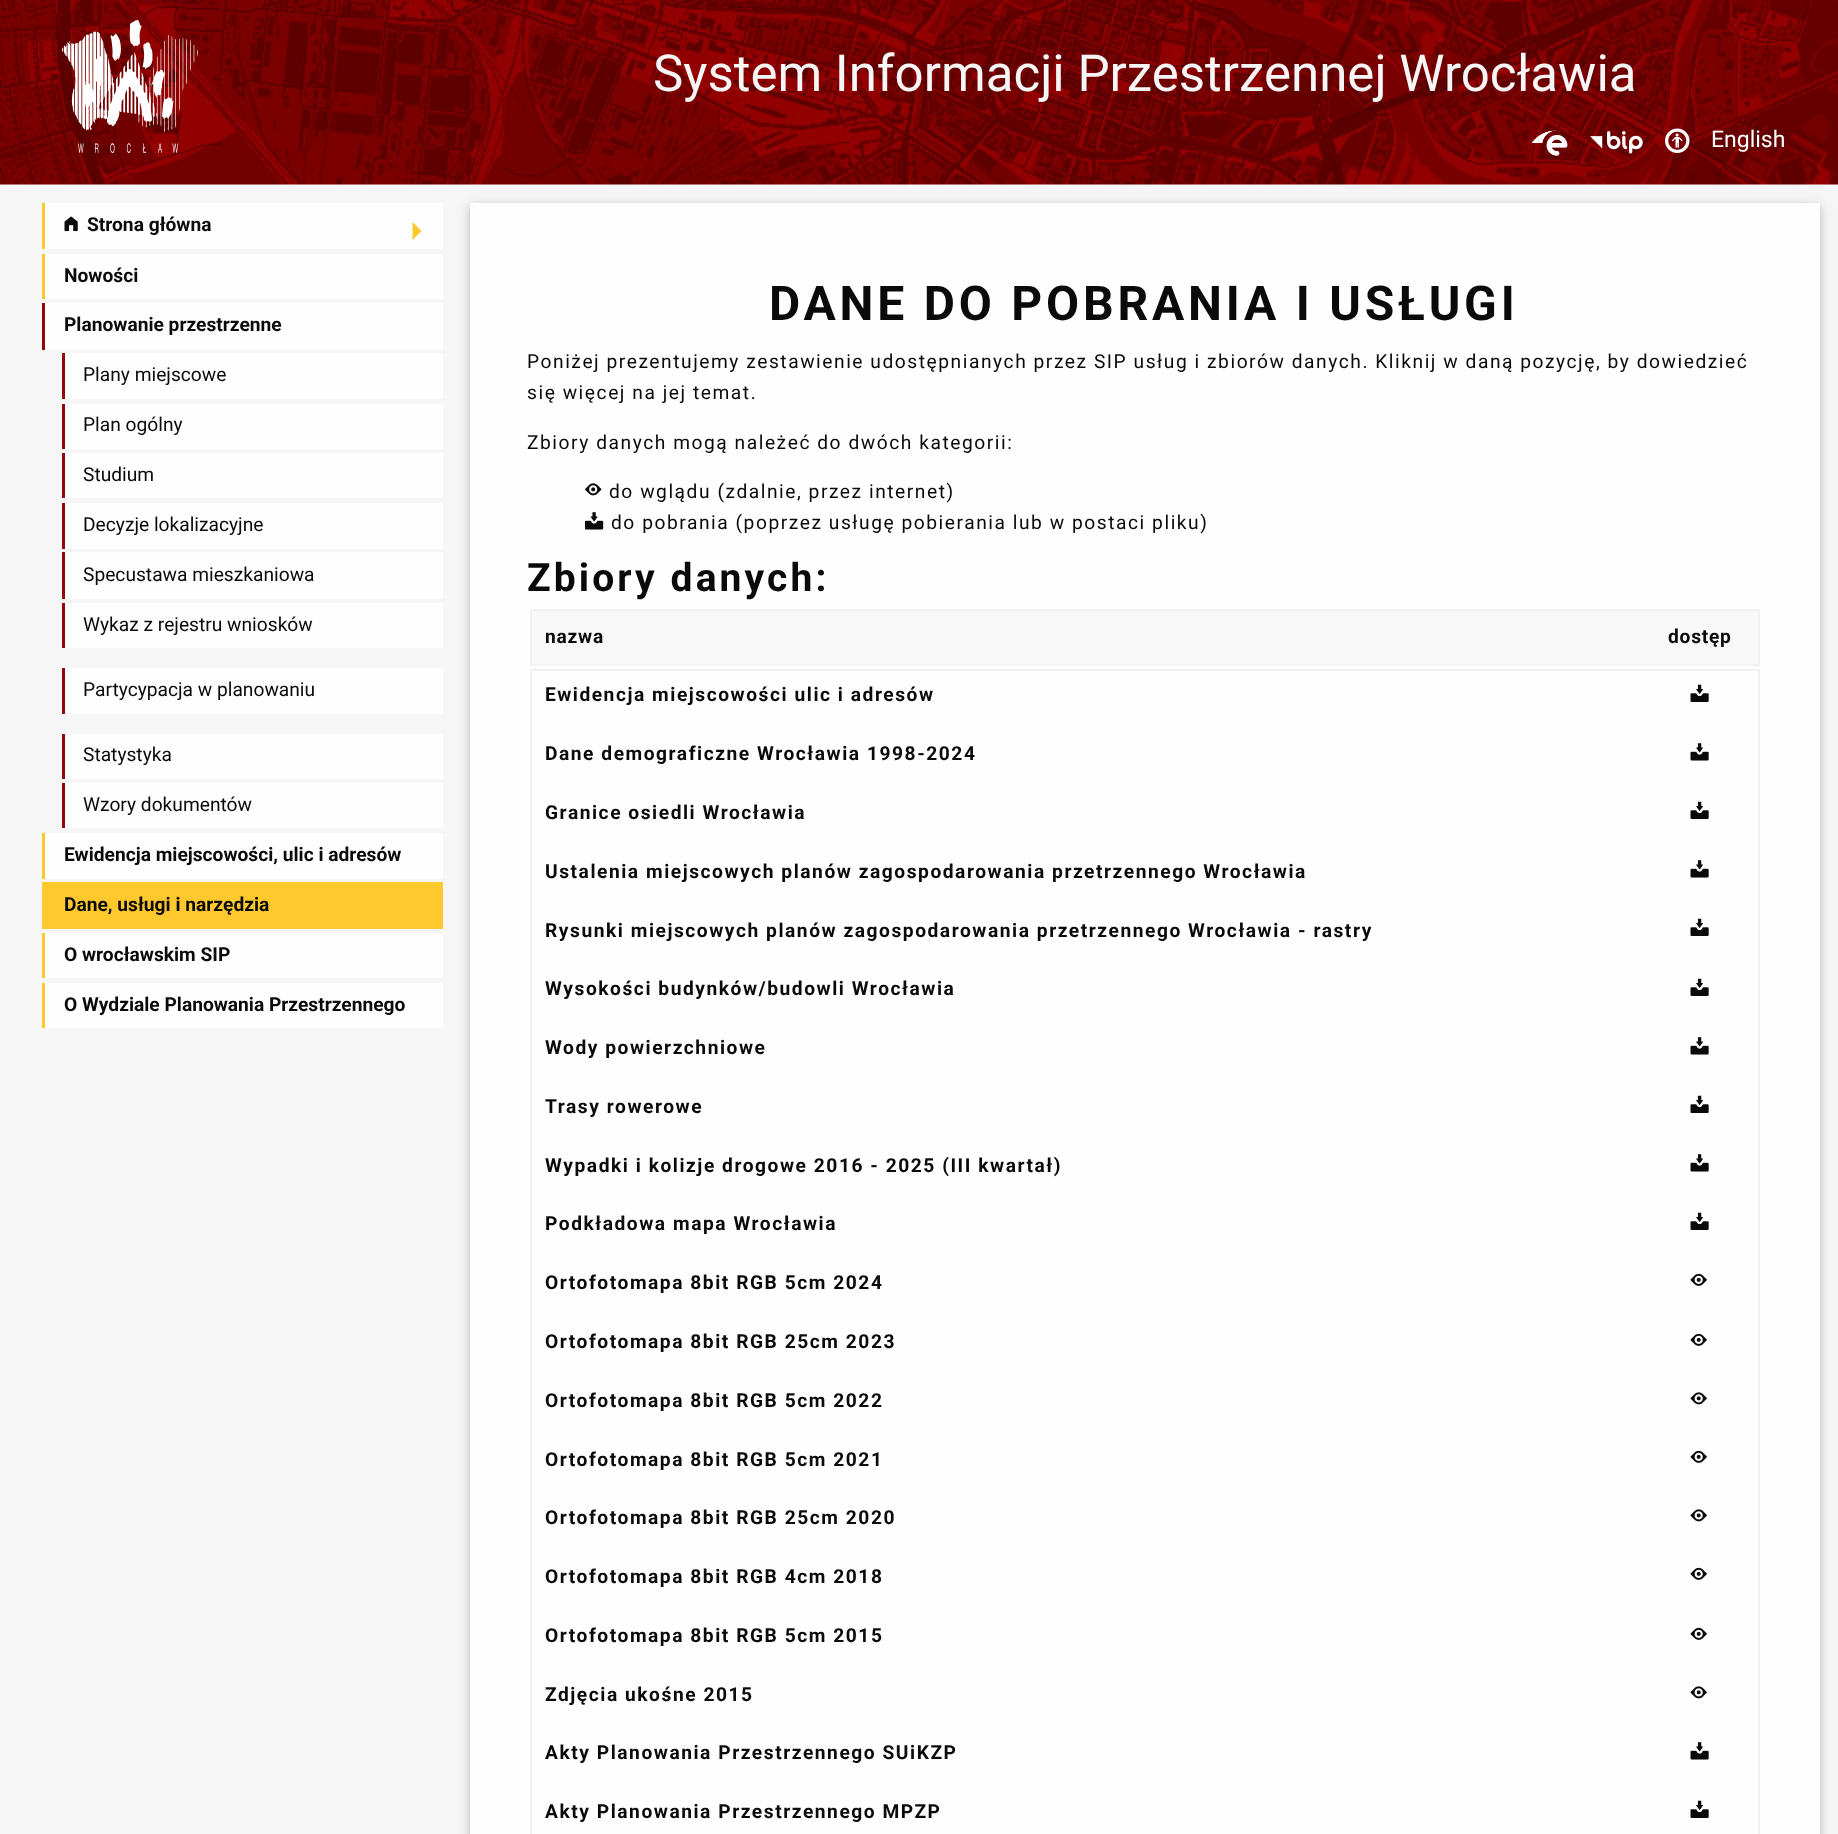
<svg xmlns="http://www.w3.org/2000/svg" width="1838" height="1834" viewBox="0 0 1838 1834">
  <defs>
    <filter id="blur1" x="-50%" y="-200%" width="200%" height="500%"><feGaussianBlur stdDeviation="7.5"/></filter>
    <filter id="blur2" x="-50%" y="-200%" width="200%" height="500%"><feGaussianBlur stdDeviation="3"/></filter>
  </defs>
  <rect width="100%" height="100%" fill="#f6f6f6"/>
  <image x="0" y="0" width="1838" height="185" href="img1.png"/>
  <image x="62" y="20" width="136" height="133" href="img2.png"/>
  <text x="653" y="91" font-family="Roboto" font-size="51" fill="#f6f6f6">System Informacji Przestrzennej Wrocławia</text>
  <image x="1531" y="130" width="37" height="26" href="img3.png"/>
  <image x="1590" y="131" width="53" height="23" href="img4.png"/>
  <image x="1665" y="128" width="25" height="25" href="img5.png"/>
  <text x="1711" y="147" font-family="Roboto" font-size="23" fill="#fefefe">English</text>
  <rect x="45" y="203" width="398" height="46" fill="#fefefe"/>
  <rect x="42" y="203" width="3" height="46" fill="#ffc82d"/>
  <image x="64" y="216" width="14" height="16" href="img6.png"/>
  <text x="87" y="231" font-family="Roboto" font-size="19.2" font-weight="bold" fill="#0a0a0a">Strona główna</text>
  <path d="M412.5 240V222L421.5 231Z" fill="#ffc82d"/>
  <rect x="45" y="254" width="398" height="45" fill="#fefefe"/>
  <rect x="42" y="254" width="3" height="45" fill="#ffc82d"/>
  <text x="64" y="282" font-family="Roboto" font-size="19.2" font-weight="bold" fill="#0a0a0a">Nowości</text>
  <rect x="45" y="303" width="398" height="47" fill="#fefefe"/>
  <rect x="42" y="303" width="3" height="47" fill="#97040c"/>
  <text x="64" y="331" font-family="Roboto" font-size="19.2" font-weight="bold" fill="#0a0a0a">Planowanie przestrzenne</text>
  <rect x="65" y="353" width="378" height="46" fill="#fefefe"/>
  <rect x="62" y="353" width="3" height="46" fill="#97040c"/>
  <text x="83" y="381" font-family="Roboto" font-size="19.2" fill="#0a0a0a">Plany miejscowe</text>
  <rect x="65" y="404" width="378" height="45" fill="#fefefe"/>
  <rect x="62" y="404" width="3" height="45" fill="#97040c"/>
  <text x="83" y="431" font-family="Roboto" font-size="19.2" fill="#0a0a0a">Plan ogólny</text>
  <rect x="65" y="453" width="378" height="45" fill="#fefefe"/>
  <rect x="62" y="453" width="3" height="45" fill="#97040c"/>
  <text x="83" y="481" font-family="Roboto" font-size="19.2" fill="#0a0a0a">Studium</text>
  <rect x="65" y="503" width="378" height="46" fill="#fefefe"/>
  <rect x="62" y="503" width="3" height="46" fill="#97040c"/>
  <text x="83" y="531" font-family="Roboto" font-size="19.2" fill="#0a0a0a">Decyzje lokalizacyjne</text>
  <rect x="65" y="552" width="378" height="47" fill="#fefefe"/>
  <rect x="62" y="552" width="3" height="47" fill="#97040c"/>
  <text x="83" y="581" font-family="Roboto" font-size="19.2" fill="#0a0a0a">Specustawa mieszkaniowa</text>
  <rect x="65" y="603" width="378" height="45" fill="#fefefe"/>
  <rect x="62" y="603" width="3" height="45" fill="#97040c"/>
  <text x="83" y="631" font-family="Roboto" font-size="19.2" fill="#0a0a0a">Wykaz z rejestru wniosków</text>
  <rect x="65" y="668" width="378" height="46" fill="#fefefe"/>
  <rect x="62" y="668" width="3" height="46" fill="#97040c"/>
  <text x="83" y="696" font-family="Roboto" font-size="19.2" fill="#0a0a0a">Partycypacja w planowaniu</text>
  <rect x="65" y="734" width="378" height="45" fill="#fefefe"/>
  <rect x="62" y="734" width="3" height="45" fill="#97040c"/>
  <text x="83" y="761" font-family="Roboto" font-size="19.2" fill="#0a0a0a">Statystyka</text>
  <rect x="65" y="783" width="378" height="45" fill="#fefefe"/>
  <rect x="62" y="783" width="3" height="45" fill="#97040c"/>
  <text x="83" y="811" font-family="Roboto" font-size="19.2" fill="#0a0a0a">Wzory dokumentów</text>
  <rect x="45" y="833" width="398" height="46" fill="#fefefe"/>
  <rect x="42" y="833" width="3" height="46" fill="#ffc82d"/>
  <text x="64" y="861" font-family="Roboto" font-size="19.2" font-weight="bold" fill="#0a0a0a">Ewidencja miejscowości, ulic i adresów</text>
  <rect x="42" y="882" width="401" height="47" fill="#ffc82d"/>
  <text x="64" y="911" font-family="Roboto" font-size="19.2" font-weight="bold" fill="#0a0a0a">Dane, usługi i narzędzia</text>
  <rect x="45" y="933" width="398" height="45" fill="#fefefe"/>
  <rect x="42" y="933" width="3" height="45" fill="#ffc82d"/>
  <text x="64" y="961" font-family="Roboto" font-size="19.2" font-weight="bold" fill="#0a0a0a">O wrocławskim SIP</text>
  <rect x="45" y="983" width="398" height="45" fill="#fefefe"/>
  <rect x="42" y="983" width="3" height="45" fill="#ffc82d"/>
  <text x="64" y="1011" font-family="Roboto" font-size="19.2" font-weight="bold" fill="#0a0a0a">O Wydziale Planowania Przestrzennego</text>
  <rect x="470" y="206" width="1350" height="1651" fill="#000000" fill-opacity="0.12" filter="url(#blur1)"/>
  <rect x="470" y="206" width="1350" height="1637" fill="#000000" fill-opacity="0.16" filter="url(#blur2)"/>
  <rect x="470" y="203" width="1350" height="1631" fill="#fefefe"/>
  <text x="769" y="320" font-family="Roboto" font-size="48" font-weight="bold" letter-spacing="3.8" fill="#0a0a0a">DANE DO POBRANIA I USŁUGI</text>
  <text x="527" y="368" font-family="Roboto" font-size="19.2" letter-spacing="1.54" fill="#0a0a0a">Poniżej prezentujemy zestawienie udostępnianych przez SIP usług i zbiorów danych. Kliknij w daną pozycję, by dowiedzieć</text>
  <text x="527" y="399" font-family="Roboto" font-size="19.2" letter-spacing="1.54" fill="#0a0a0a">się więcej na jej temat.</text>
  <text x="527" y="449" font-family="Roboto" font-size="19.2" letter-spacing="1.54" fill="#0a0a0a">Zbiory danych mogą należeć do dwóch kategorii:</text>
  <image x="585" y="483" width="17" height="13" href="img7.png"/>
  <text x="609" y="498" font-family="Roboto" font-size="19.2" letter-spacing="1.54" fill="#0a0a0a">do wglądu (zdalnie, przez internet)</text>
  <image x="585" y="512" width="19" height="18" href="img8.png"/>
  <text x="611" y="529" font-family="Roboto" font-size="19.2" letter-spacing="1.54" fill="#0a0a0a">do pobrania (poprzez usługę pobierania lub w postaci pliku)</text>
  <text x="527" y="591" font-family="Roboto" font-size="39" font-weight="bold" letter-spacing="3.1" fill="#0a0a0a">Zbiory danych:</text>
  <rect x="531" y="610" width="1228" height="55" fill="#f8f8f8" stroke="#f1f1f1" stroke-width="2"/>
  <text x="545" y="643" font-family="Roboto" font-size="19.2" font-weight="bold" letter-spacing="0.75" fill="#0a0a0a">nazwa</text>
  <text x="1668" y="643" font-family="Roboto" font-size="19.2" font-weight="bold" letter-spacing="0.75" fill="#0a0a0a">dostęp</text>
  <rect x="531" y="670" width="1228" height="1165" fill="none" stroke="#f1f1f1" stroke-width="2"/>
  <text x="545" y="701" font-family="Roboto" font-size="19.2" font-weight="bold" letter-spacing="1.54" fill="#0a0a0a">Ewidencja miejscowości ulic i adresów</text>
  <image x="1690" y="684" width="19" height="18" href="img9.png"/>
  <text x="545" y="760" font-family="Roboto" font-size="19.2" font-weight="bold" letter-spacing="1.54" fill="#0a0a0a">Dane demograficzne Wrocławia 1998-2024</text>
  <image x="1690" y="743" width="19" height="18" href="img10.png"/>
  <text x="545" y="819" font-family="Roboto" font-size="19.2" font-weight="bold" letter-spacing="1.54" fill="#0a0a0a">Granice osiedli Wrocławia</text>
  <image x="1690" y="801" width="19" height="18" href="img9.png"/>
  <text x="545" y="878" font-family="Roboto" font-size="19.2" font-weight="bold" letter-spacing="1.54" fill="#0a0a0a">Ustalenia miejscowych planów zagospodarowania przetrzennego Wrocławia</text>
  <image x="1690" y="860" width="19" height="18" href="img10.png"/>
  <text x="545" y="937" font-family="Roboto" font-size="19.2" font-weight="bold" letter-spacing="1.54" fill="#0a0a0a">Rysunki miejscowych planów zagospodarowania przetrzennego Wrocławia - rastry</text>
  <image x="1690" y="918" width="19" height="18" href="img9.png"/>
  <text x="545" y="995" font-family="Roboto" font-size="19.2" font-weight="bold" letter-spacing="1.54" fill="#0a0a0a">Wysokości budynków/budowli Wrocławia</text>
  <image x="1690" y="978" width="19" height="18" href="img9.png"/>
  <text x="545" y="1054" font-family="Roboto" font-size="19.2" font-weight="bold" letter-spacing="1.54" fill="#0a0a0a">Wody powierzchniowe</text>
  <image x="1690" y="1037" width="19" height="18" href="img10.png"/>
  <text x="545" y="1113" font-family="Roboto" font-size="19.2" font-weight="bold" letter-spacing="1.54" fill="#0a0a0a">Trasy rowerowe</text>
  <image x="1690" y="1095" width="19" height="18" href="img9.png"/>
  <text x="545" y="1172" font-family="Roboto" font-size="19.2" font-weight="bold" letter-spacing="1.54" fill="#0a0a0a">Wypadki i kolizje drogowe 2016 - 2025 (III kwartał)</text>
  <image x="1690" y="1154" width="19" height="18" href="img10.png"/>
  <text x="545" y="1230" font-family="Roboto" font-size="19.2" font-weight="bold" letter-spacing="1.54" fill="#0a0a0a">Podkładowa mapa Wrocławia</text>
  <image x="1690" y="1212" width="19" height="18" href="img9.png"/>
  <text x="545" y="1289" font-family="Roboto" font-size="19.2" font-weight="bold" letter-spacing="1.54" fill="#0a0a0a">Ortofotomapa 8bit RGB 5cm 2024</text>
  <image x="1690" y="1273" width="17" height="13" href="img11.png"/>
  <text x="545" y="1348" font-family="Roboto" font-size="19.2" font-weight="bold" letter-spacing="1.54" fill="#0a0a0a">Ortofotomapa 8bit RGB 25cm 2023</text>
  <image x="1690" y="1333" width="17" height="13" href="img11.png"/>
  <text x="545" y="1407" font-family="Roboto" font-size="19.2" font-weight="bold" letter-spacing="1.54" fill="#0a0a0a">Ortofotomapa 8bit RGB 5cm 2022</text>
  <image x="1690" y="1392" width="17" height="13" href="img12.png"/>
  <text x="545" y="1466" font-family="Roboto" font-size="19.2" font-weight="bold" letter-spacing="1.54" fill="#0a0a0a">Ortofotomapa 8bit RGB 5cm 2021</text>
  <image x="1690" y="1450" width="17" height="13" href="img11.png"/>
  <text x="545" y="1524" font-family="Roboto" font-size="19.2" font-weight="bold" letter-spacing="1.54" fill="#0a0a0a">Ortofotomapa 8bit RGB 25cm 2020</text>
  <image x="1690" y="1509" width="17" height="13" href="img12.png"/>
  <text x="545" y="1583" font-family="Roboto" font-size="19.2" font-weight="bold" letter-spacing="1.54" fill="#0a0a0a">Ortofotomapa 8bit RGB 4cm 2018</text>
  <image x="1690" y="1567" width="17" height="13" href="img11.png"/>
  <text x="545" y="1642" font-family="Roboto" font-size="19.2" font-weight="bold" letter-spacing="1.54" fill="#0a0a0a">Ortofotomapa 8bit RGB 5cm 2015</text>
  <image x="1690" y="1627" width="17" height="13" href="img11.png"/>
  <text x="545" y="1701" font-family="Roboto" font-size="19.2" font-weight="bold" letter-spacing="1.54" fill="#0a0a0a">Zdjęcia ukośne 2015</text>
  <image x="1690" y="1686" width="17" height="13" href="img12.png"/>
  <text x="545" y="1759" font-family="Roboto" font-size="19.2" font-weight="bold" letter-spacing="1.54" fill="#0a0a0a">Akty Planowania Przestrzennego SUiKZP</text>
  <image x="1690" y="1742" width="19" height="18" href="img10.png"/>
  <text x="545" y="1818" font-family="Roboto" font-size="19.2" font-weight="bold" letter-spacing="1.54" fill="#0a0a0a">Akty Planowania Przestrzennego MPZP</text>
  <image x="1690" y="1800" width="19" height="18" href="img9.png"/>
</svg>
